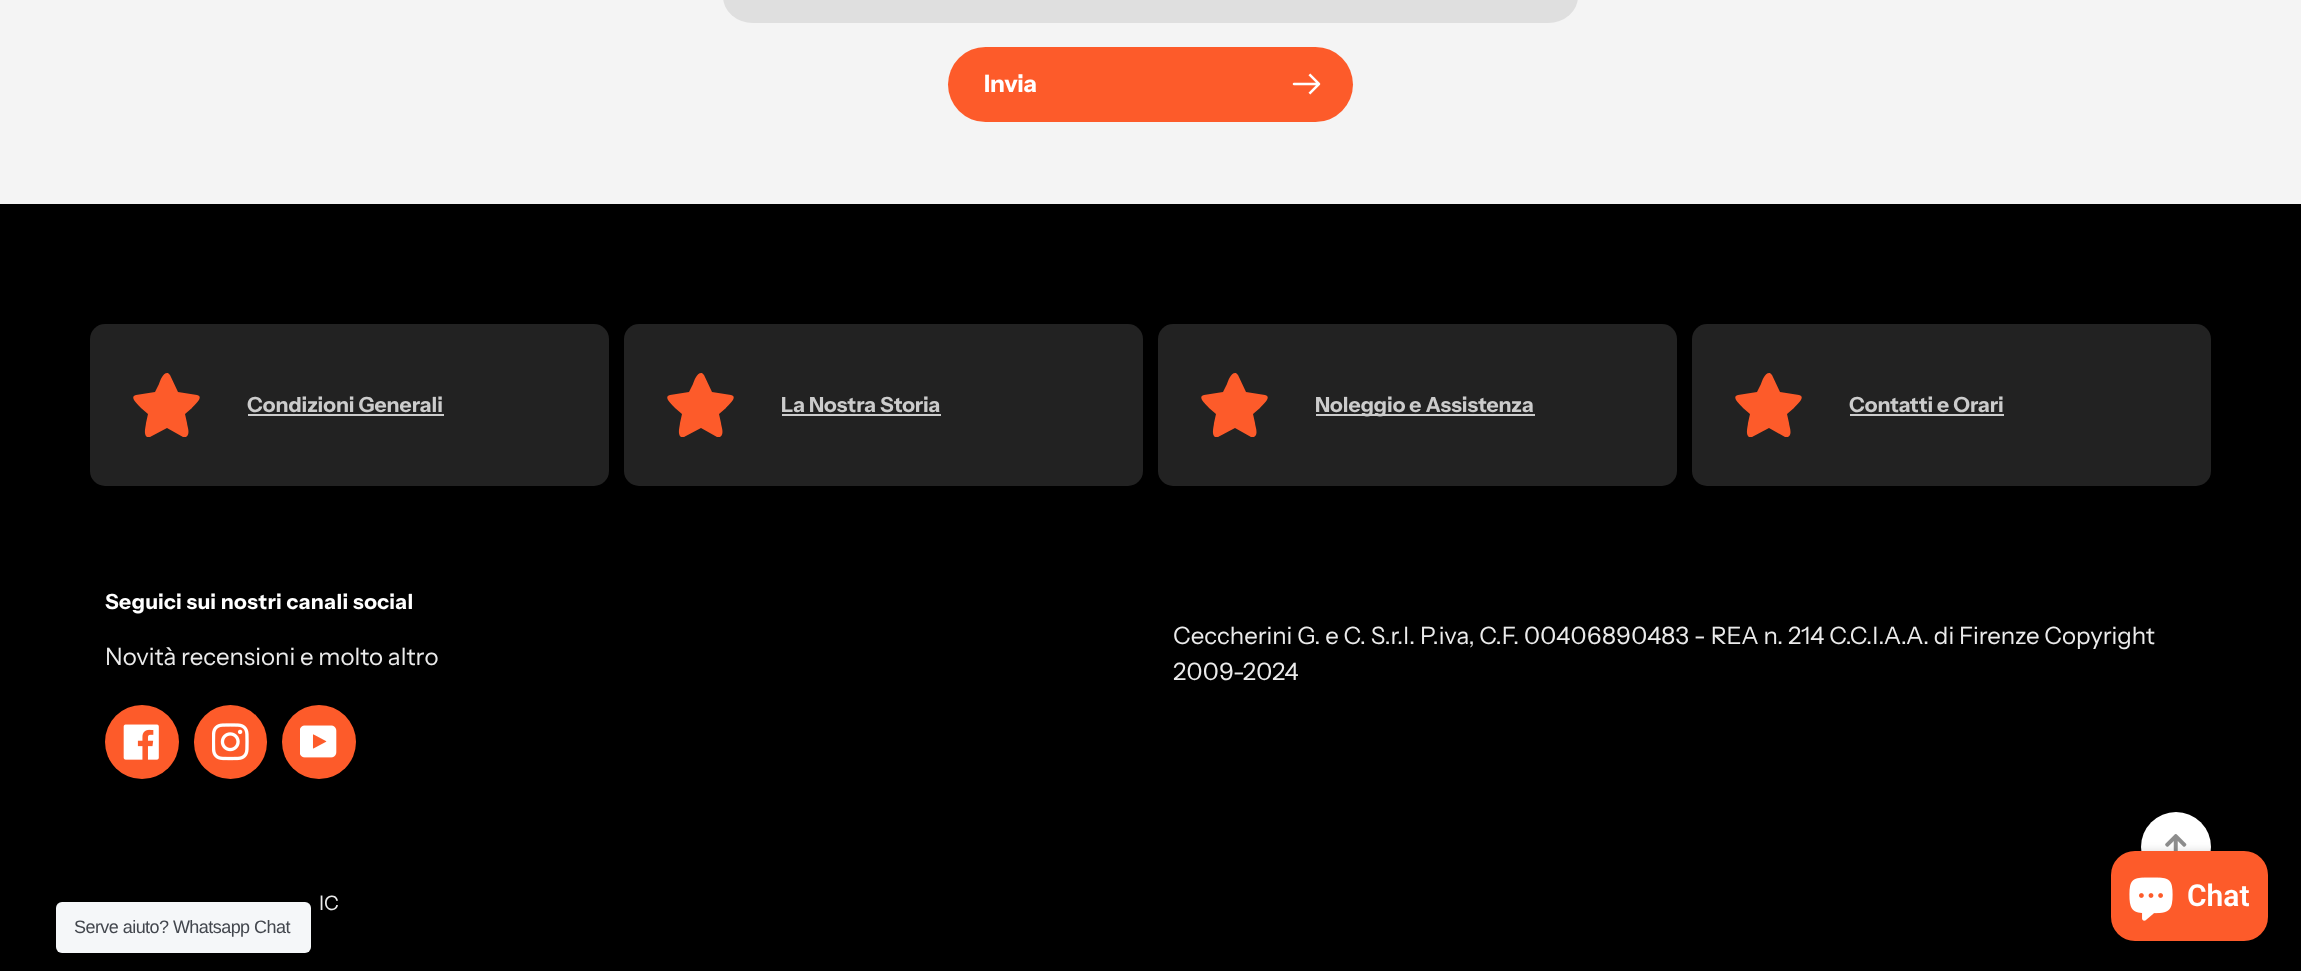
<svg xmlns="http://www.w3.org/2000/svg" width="2301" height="971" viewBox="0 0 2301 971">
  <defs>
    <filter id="blur1" x="-50%" y="-200%" width="200%" height="500%"><feGaussianBlur stdDeviation="4"/></filter>
  </defs>
  <rect width="100%" height="100%" fill="#f4f4f4"/>
  <rect x="723" y="-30" width="855" height="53" rx="30" fill="#dfdfdf"/>
  <rect x="948" y="47" width="405" height="75" rx="37.5" fill="#fd5b2a"/>
  <text x="984" y="92" font-family="Instrument Sans" font-size="24" font-weight="bold" fill="#ffffff">Invia</text>
  <image x="1292" y="73" width="29" height="22" href="img1.png"/>
  <rect x="0" y="204" width="2301" height="767" fill="#000000"/>
  <rect x="90" y="324" width="519" height="162" rx="15" fill="#222222"/>
  <path d="M170 375L168 373C163 372 160 381 159 384L155 392L136 395C128 397 140 406 141 408L148 414L146 423C146 426 143 434 147 437H150L167 428L183 437H186C191 434 187 426 187 423L185 414L192 408C193 406 205 397 197 395L178 392Z" fill="#fd5b2a"/>
  <text x="247" y="412" font-family="Instrument Sans" font-size="21" font-weight="bold" fill="#cccccc">Condizioni Generali</text>
  <rect x="248" y="414" width="196" height="2" fill="#cccccc"/>
  <rect x="624" y="324" width="519" height="162" rx="15" fill="#222222"/>
  <path d="M704 375L702 373C697 372 694 381 693 384L689 392L670 395C662 397 674 406 675 408L682 414L680 423C680 426 677 434 681 437H684L701 428L717 437H720C725 434 721 426 721 423L719 414L726 408C727 406 739 397 731 395L712 392Z" fill="#fd5b2a"/>
  <text x="781" y="412" font-family="Instrument Sans" font-size="21" font-weight="bold" fill="#cccccc">La Nostra Storia</text>
  <rect x="782" y="414" width="159" height="2" fill="#cccccc"/>
  <rect x="1158" y="324" width="519" height="162" rx="15" fill="#222222"/>
  <path d="M1238 375L1236 373C1231 372 1228 381 1227 384L1223 392L1204 395C1196 397 1208 406 1209 408L1216 414L1214 423C1214 426 1211 434 1215 437H1218L1235 428L1251 437H1254C1259 434 1255 426 1255 423L1253 414L1260 408C1261 406 1273 397 1265 395L1246 392Z" fill="#fd5b2a"/>
  <rect x="1316" y="414" width="219" height="2" fill="#cccccc"/>
  <text x="1315" y="412" font-family="Instrument Sans" font-size="21" font-weight="bold" fill="#cccccc">Noleggio e Assistenza</text>
  <rect x="1692" y="324" width="519" height="162" rx="15" fill="#222222"/>
  <path d="M1772 375L1770 373C1765 372 1762 381 1761 384L1757 392L1738 395C1730 397 1742 406 1743 408L1750 414L1748 423C1748 426 1745 434 1749 437H1752L1769 428L1785 437H1788C1793 434 1789 426 1789 423L1787 414L1794 408C1795 406 1807 397 1799 395L1780 392Z" fill="#fd5b2a"/>
  <text x="1849" y="412" font-family="Instrument Sans" font-size="21" font-weight="bold" fill="#cccccc">Contatti e Orari</text>
  <rect x="1850" y="414" width="154" height="2" fill="#cccccc"/>
  <text x="105" y="609" font-family="Instrument Sans" font-size="21" font-weight="bold" letter-spacing="0.4" fill="#ffffff">Seguici sui nostri canali social</text>
  <text x="105" y="665" font-family="Instrument Sans" font-size="24" fill="#ebebeb">Novità recensioni e molto altro</text>
  <circle cx="142" cy="742" r="37" fill="#fd5b2a"/>
  <image x="123" y="724" width="36" height="36" href="img2.png"/>
  <rect x="194" y="705" width="73" height="74" rx="36.5" fill="#fd5b2a"/>
  <image x="212" y="723" width="37" height="38" href="img3.png"/>
  <circle cx="319" cy="742" r="37" fill="#fd5b2a"/>
  <image x="300" y="725" width="37" height="33" href="img4.png"/>
  <text x="1173" y="644" font-family="Instrument Sans" font-size="24" fill="#ebebeb">Ceccherini G. e C. S.r.l. P.iva, C.F. 00406890483 - REA n. 214 C.C.I.A.A. di Firenze Copyright</text>
  <text x="1173" y="680" font-family="Instrument Sans" font-size="24" fill="#ebebeb">2009-2024</text>
  <text x="319" y="910" font-family="Instrument Sans" font-size="20" fill="#ebebeb">IC</text>
  <circle cx="2176" cy="847" r="35" fill="#ffffff"/>
  <image x="2165" y="834" width="22" height="17" href="img5.png"/>
  <rect x="2111" y="851" width="157" height="90" rx="24" fill="#000000" fill-opacity="0.15" filter="url(#blur1)"/>
  <rect x="2111" y="851" width="157" height="90" rx="24" fill="#fd5b2a"/>
  <image x="2129" y="877" width="44" height="44" href="img6.png"/>
  <text x="2187" y="906" font-family="Roboto" font-size="30" font-weight="600" fill="#ffffff">Chat</text>
  <rect x="56" y="902" width="255" height="51" rx="6" fill="#f5f7f9"/>
  <text x="74" y="933" font-family="Liberation Sans" font-size="18" letter-spacing="-0.55" fill="#43474e">Serve aiuto? Whatsapp Chat</text>
</svg>
